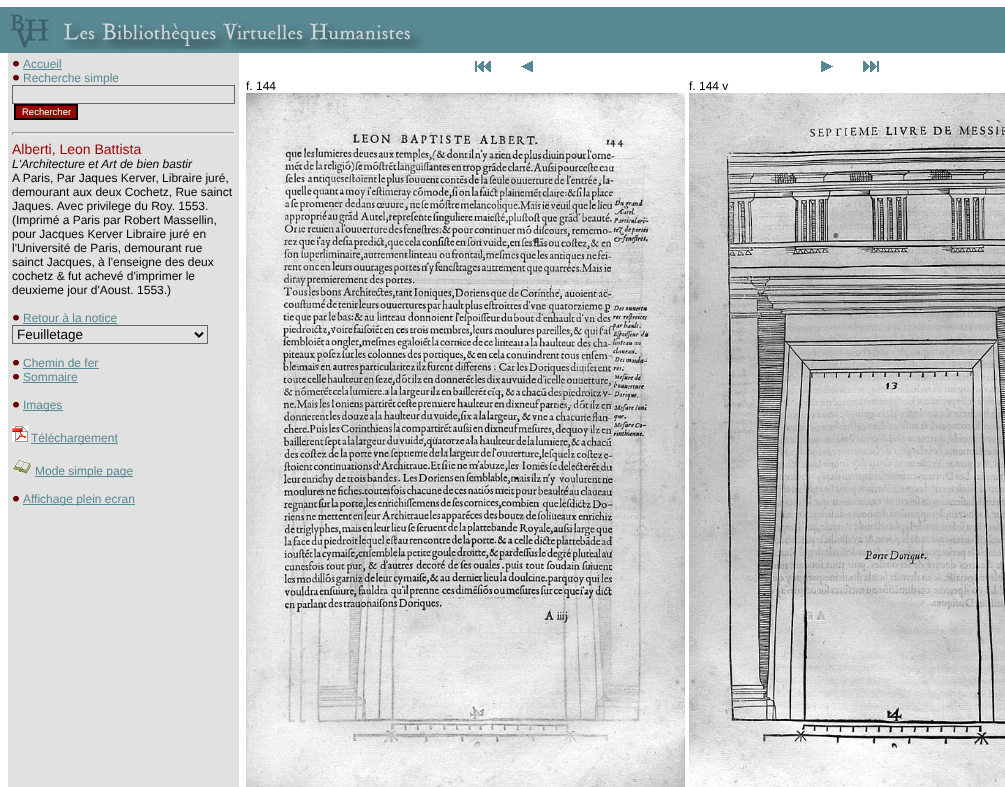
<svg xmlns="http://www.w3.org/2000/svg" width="1005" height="787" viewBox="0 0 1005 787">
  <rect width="100%" height="100%" fill="#ffffff"/>
  <rect x="0" y="7" width="1005" height="46" fill="#598995"/>
  <image x="9" y="12" width="417" height="37" href="img1.png"/>
  <rect x="8" y="53" width="231" height="734" fill="#e1e1e1"/>
  <image x="13" y="61" width="7" height="7" href="img2.png"/>
  <text x="23" y="68" font-family="Liberation Sans" font-size="12" fill="#588893">Accueil</text>
  <rect x="23" y="69" width="39" height="1" fill="#588893"/>
  <image x="13" y="75" width="7" height="7" href="img2.png"/>
  <text x="23" y="82" font-family="Liberation Sans" font-size="12" fill="#588893">Recherche simple</text>
  <rect x="12.5" y="85.5" width="222" height="18" fill="none" stroke="#666666"/>
  <rect x="15" y="105" width="62" height="14" fill="#990000" stroke="#000000" stroke-width="2"/>
  <text x="22" y="115" font-family="Liberation Sans" font-size="9.5" fill="#ffffff">Rechercher</text>
  <rect x="12" y="132" width="223" height="1" fill="#9f9f9f"/>
  <rect x="234" y="132" width="1" height="3" fill="#eeeeee"/>
  <rect x="12" y="134" width="223" height="1" fill="#eeeeee"/>
  <rect x="12" y="132" width="1" height="3" fill="#9f9f9f"/>
  <text x="12" y="154" font-family="Liberation Sans" font-size="14" fill="#990000">Alberti, Leon Battista</text>
  <text x="12" y="168" font-family="Liberation Sans" font-size="12" font-style="italic" fill="#000000">L'Architecture et Art de bien bastir</text>
  <text x="12" y="182" font-family="Liberation Sans" font-size="12" fill="#000000">A Paris, Par Jaques Kerver, Libraire juré,</text>
  <text x="12" y="196" font-family="Liberation Sans" font-size="12" fill="#000000">demourant aux deux Cochetz, Rue sainct</text>
  <text x="12" y="210" font-family="Liberation Sans" font-size="12" fill="#000000">Jaques. Avec privilege du Roy. 1553.</text>
  <text x="12" y="224" font-family="Liberation Sans" font-size="12" fill="#000000">(Imprimé a Paris par Robert Massellin,</text>
  <text x="12" y="238" font-family="Liberation Sans" font-size="12" fill="#000000">pour Jacques Kerver Libraire juré en</text>
  <text x="12" y="252" font-family="Liberation Sans" font-size="12" fill="#000000">l'Université de Paris, demourant rue</text>
  <text x="12" y="266" font-family="Liberation Sans" font-size="12" fill="#000000">sainct Jacques, à l'enseigne des deux</text>
  <text x="12" y="280" font-family="Liberation Sans" font-size="12" fill="#000000">cochetz &amp; fut achevé d'imprimer le</text>
  <text x="12" y="294" font-family="Liberation Sans" font-size="12" fill="#000000">deuxieme jour d'Aoust. 1553.)</text>
  <image x="13" y="315" width="7" height="7" href="img2.png"/>
  <text x="23" y="322" font-family="Liberation Sans" font-size="12" fill="#588893">Retour à la notice</text>
  <rect x="23" y="323" width="94" height="1" fill="#588893"/>
  <rect x="12.5" y="325.5" width="195" height="18" fill="none" stroke="#666666"/>
  <path d="M195 332.5L199 336.5L203 332.5" fill="none" stroke="#000000" stroke-width="2"/>
  <text x="17" y="339" font-family="Liberation Sans" font-size="13.5" fill="#000000">Feuilletage</text>
  <image x="13" y="360" width="7" height="7" href="img2.png"/>
  <text x="23" y="367" font-family="Liberation Sans" font-size="12" fill="#588893">Chemin de fer</text>
  <rect x="23" y="368" width="76" height="1" fill="#588893"/>
  <image x="13" y="374" width="7" height="7" href="img2.png"/>
  <text x="23" y="381" font-family="Liberation Sans" font-size="12" fill="#588893">Sommaire</text>
  <rect x="23" y="382" width="55" height="1" fill="#588893"/>
  <image x="13" y="402" width="7" height="7" href="img2.png"/>
  <rect x="23" y="410" width="40" height="1" fill="#588893"/>
  <text x="23" y="409" font-family="Liberation Sans" font-size="12" fill="#588893">Images</text>
  <image x="12" y="426" width="16" height="16" href="img3.png"/>
  <rect x="31" y="443" width="87" height="1" fill="#588893"/>
  <text x="31" y="442" font-family="Liberation Sans" font-size="12" fill="#588893">Téléchargement</text>
  <image x="13" y="460" width="18" height="14" href="img4.png"/>
  <rect x="35" y="476" width="98" height="1" fill="#588893"/>
  <text x="35" y="475" font-family="Liberation Sans" font-size="12" fill="#588893">Mode simple page</text>
  <image x="13" y="496" width="7" height="7" href="img2.png"/>
  <rect x="23" y="504" width="112" height="1" fill="#588893"/>
  <text x="23" y="503" font-family="Liberation Sans" font-size="12" fill="#588893">Affichage plein ecran</text>
  <image x="475" y="61" width="16" height="11" href="img5.png"/>
  <image x="521" y="61" width="12" height="11" href="img6.png"/>
  <image x="821" y="61" width="12" height="11" href="img7.png"/>
  <image x="863" y="61" width="16" height="11" href="img8.png"/>
  <text x="246" y="90" font-family="Liberation Sans" font-size="12" fill="#000000">f. 144</text>
  <image x="246" y="93" width="439" height="694" href="img9.png"/>
  <text x="689" y="90" font-family="Liberation Sans" font-size="12" fill="#000000">f. 144 v</text>
  <image x="689" y="93" width="316" height="694" href="img10.png"/>
</svg>
